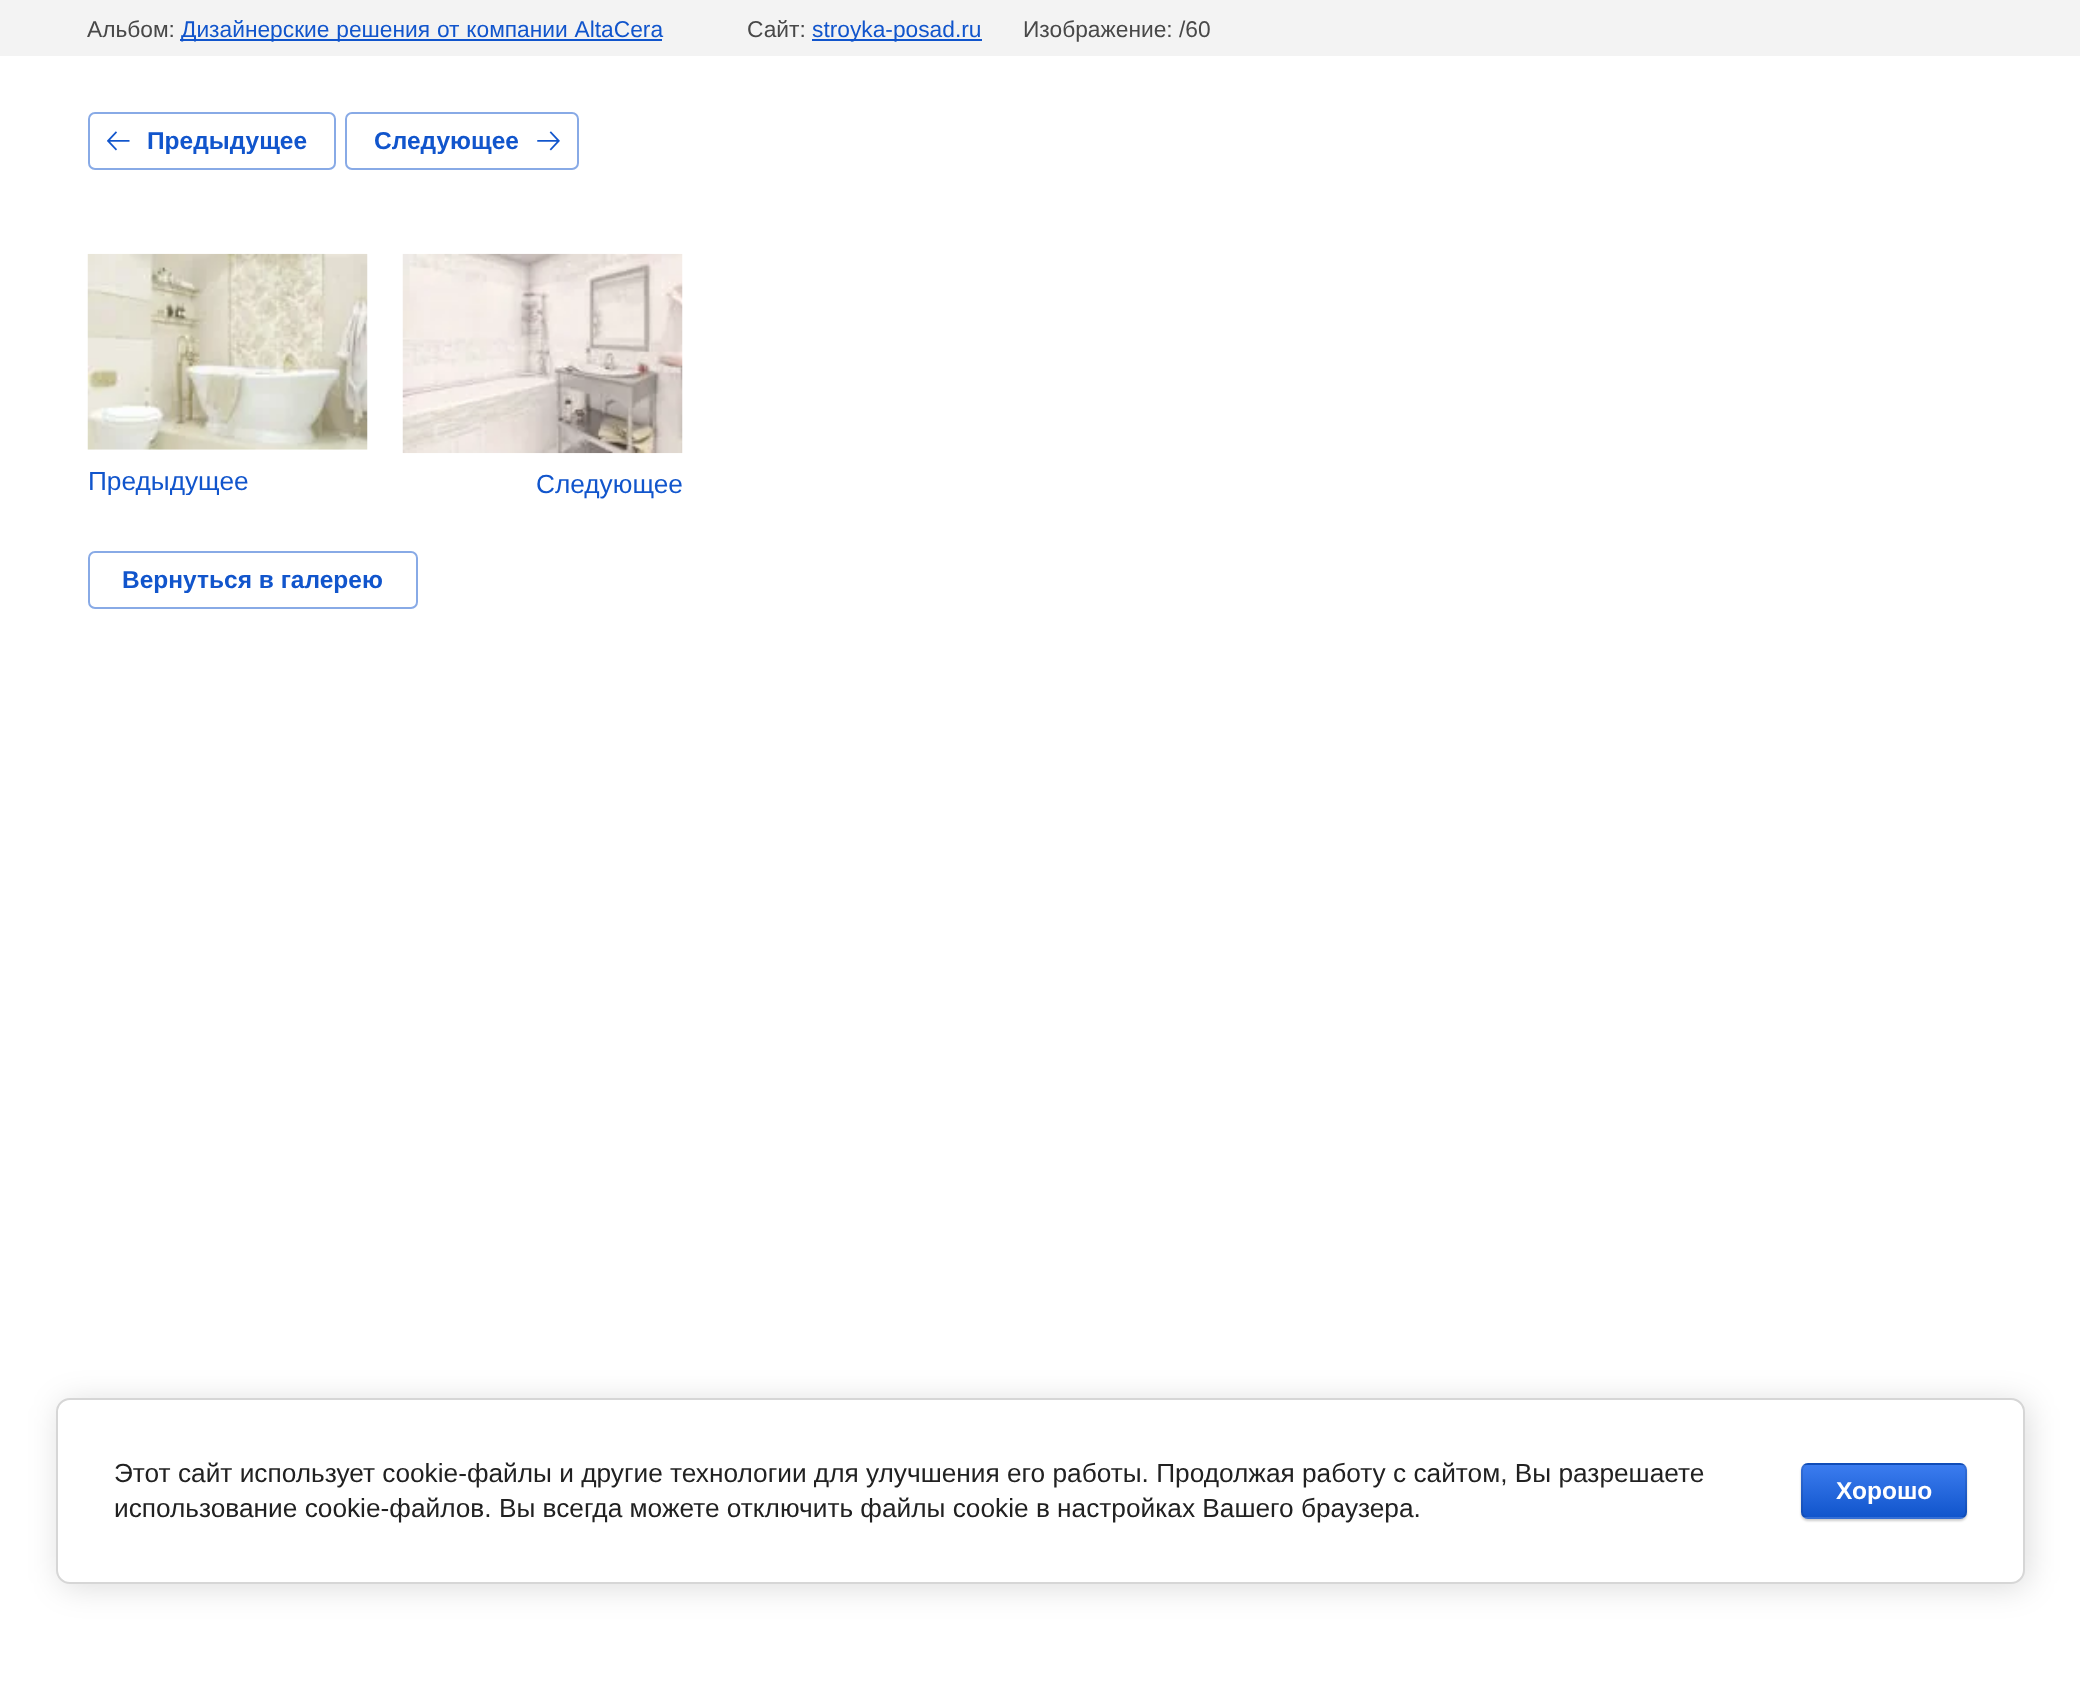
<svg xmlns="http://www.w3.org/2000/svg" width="2080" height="1695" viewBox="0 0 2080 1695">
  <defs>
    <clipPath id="clip1"><rect x="88" y="254" width="280" height="241"/></clipPath>
    <filter id="blur1" x="-50%" y="-200%" width="200%" height="500%"><feGaussianBlur stdDeviation="16"/></filter>
    <filter id="blur2" x="-50%" y="-200%" width="200%" height="500%"><feGaussianBlur stdDeviation="1"/></filter>
    <clipPath id="clip2"><rect x="1801" y="1463" width="166" height="56" rx="7"/></clipPath>
    <linearGradient id="g1" gradientUnits="userSpaceOnUse" x1="1884" y1="1412" x2="1884" y2="1465"><stop offset="0" stop-color="#3b7cef"/><stop offset="1" stop-color="#1155cc"/></linearGradient>
    <linearGradient id="g2" gradientUnits="userSpaceOnUse" x1="1884" y1="1465" x2="1884" y2="1517"><stop offset="0" stop-color="#3b7cef"/><stop offset="1" stop-color="#1155cc"/></linearGradient>
    <linearGradient id="g3" gradientUnits="userSpaceOnUse" x1="1884" y1="1517" x2="1884" y2="1570"><stop offset="0" stop-color="#3b7cef"/><stop offset="1" stop-color="#1155cc"/></linearGradient>
  </defs>
  <rect width="100%" height="100%" fill="#ffffff"/>
  <rect x="0" y="0" width="2080" height="56" fill="#f3f3f3"/>
  <text x="87" y="37" font-family="Liberation Sans" font-size="22.75" fill="#484848">Альбом:</text>
  <rect x="180" y="39" width="482" height="2" fill="#1155cc"/>
  <text x="181" y="37" word-spacing="0.5" font-family="Liberation Sans" font-size="22.75" fill="#1155cc">Дизайнерские решения от компании AltaCera</text>
  <text x="747" y="37" font-family="Liberation Sans" font-size="22.75" fill="#484848">Сайт:</text>
  <rect x="812" y="39" width="170" height="2" fill="#1155cc"/>
  <text x="812" y="37" font-family="Liberation Sans" font-size="22.75" fill="#1155cc">stroyka-posad.ru</text>
  <text x="1023" y="37" font-family="Liberation Sans" font-size="22.75" fill="#484848">Изображение: /60</text>
  <rect x="89" y="113" width="246" height="56" rx="6" fill="none" stroke="#88aae6" stroke-width="2"/>
  <image x="107" y="131" width="23" height="20" href="img1.png"/>
  <text x="147" y="149" font-family="Liberation Sans" font-size="24.5" font-weight="bold" fill="#1155cc">Предыдущее</text>
  <rect x="346" y="113" width="232" height="56" rx="6" fill="none" stroke="#88aae6" stroke-width="2"/>
  <text x="374" y="149" font-family="Liberation Sans" font-size="24.5" font-weight="bold" fill="#1155cc">Следующее</text>
  <image x="537" y="131" width="23" height="20" href="img2.png"/>
  <image x="87" y="253" width="281" height="197" href="img3.png"/>
  <g clip-path="url(#clip1)">
    <text x="88" y="490" font-family="Liberation Sans" font-size="26.25" fill="#1155cc">Предыдущее</text>
  </g>
  <image x="402" y="253" width="281" height="201" href="img4.png"/>
  <text x="536" y="493" font-family="Liberation Sans" font-size="26.25" fill="#1155cc">Следующее</text>
  <rect x="89" y="552" width="328" height="56" rx="6" fill="none" stroke="#88aae6" stroke-width="2"/>
  <text x="122" y="588" font-family="Liberation Sans" font-size="24.5" font-weight="bold" fill="#1155cc">Вернуться в галерею</text>
  <rect x="60" y="1402" width="1968" height="185" rx="14" fill="#000000" fill-opacity="0.14" filter="url(#blur1)"/>
  <rect x="57" y="1399" width="1967" height="184" rx="13" fill="#ffffff" stroke="#d6d6d6" stroke-width="2"/>
  <text x="114" y="1482" font-family="Liberation Sans" font-size="26.25" fill="#212121">Этот сайт использует cookie-файлы и другие технологии для улучшения его работы. Продолжая работу с сайтом, Вы разрешаете</text>
  <text x="114" y="1517" font-family="Liberation Sans" font-size="26.25" fill="#212121">использование cookie-файлов. Вы всегда можете отключить файлы cookie в настройках Вашего браузера.</text>
  <rect x="1801" y="1465" width="166" height="56" rx="7" fill="#000000" fill-opacity="0.2" filter="url(#blur2)"/>
  <g clip-path="url(#clip2)">
    <rect x="1801" y="1463" width="166" height="2" fill="url(#g1)"/>
    <rect x="1801" y="1465" width="166" height="52" fill="url(#g2)"/>
    <rect x="1801" y="1517" width="166" height="2" fill="url(#g3)"/>
  </g>
  <rect x="1802" y="1464" width="164" height="54" rx="6" fill="none" stroke="#000000" stroke-opacity="0.1" stroke-width="2"/>
  <text x="1836" y="1499" font-family="Liberation Sans" font-size="24.5" font-weight="bold" fill="#ffffff">Хорошо</text>
</svg>
